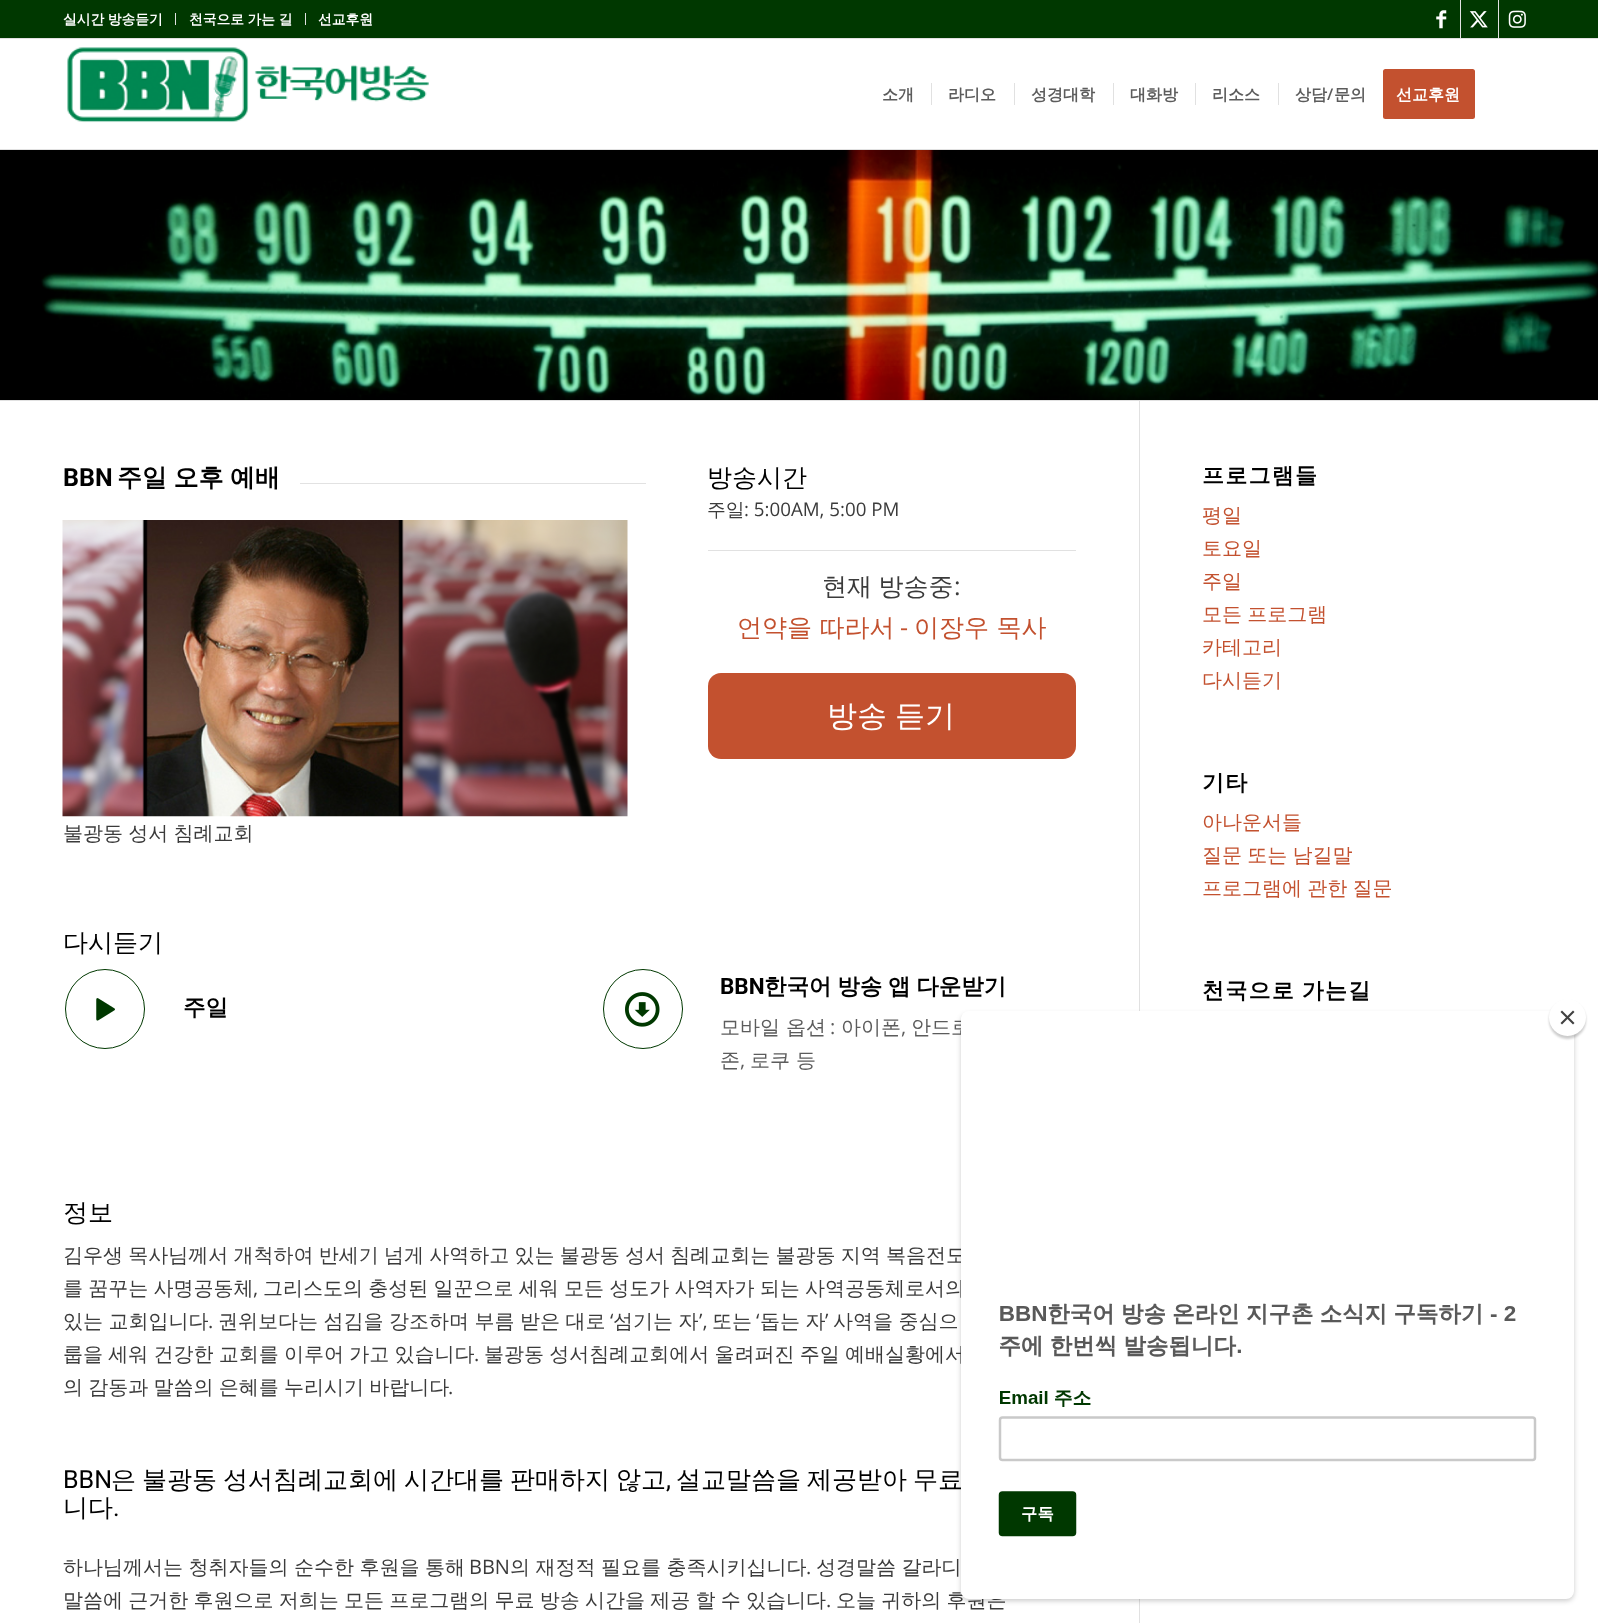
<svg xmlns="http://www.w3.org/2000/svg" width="1598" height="1623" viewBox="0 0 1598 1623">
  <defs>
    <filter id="blur1" x="-50%" y="-200%" width="200%" height="500%"><feGaussianBlur stdDeviation="2.5"/></filter>
    <filter id="blur2" x="-50%" y="-200%" width="200%" height="500%"><feGaussianBlur stdDeviation="1"/></filter>
  </defs>
  <rect width="100%" height="100%" fill="#ffffff"/>
  <rect x="0" y="0" width="1598" height="38" fill="#003800"/>
  <rect x="0" y="38" width="1598" height="1" fill="#e1e1e1"/>
  <rect x="175" y="13" width="1" height="12" fill="#e1e1e1"/>
  <text x="63" y="24" word-spacing="-0.5" font-family="WenQuanYi Zen Hei" font-size="13.75" font-weight="bold" fill="#ffffff">실시간 방송듣기</text>
  <rect x="305" y="13" width="1" height="12" fill="#e1e1e1"/>
  <text x="189" y="24" word-spacing="-0.5" font-family="WenQuanYi Zen Hei" font-size="13.75" font-weight="bold" fill="#ffffff">천국으로 가는 길</text>
  <text x="318" y="24" font-family="WenQuanYi Zen Hei" font-size="13.75" font-weight="bold" fill="#ffffff">선교후원</text>
  <rect x="1460" y="0" width="1" height="38" fill="#e1e1e1"/>
  <image x="1436" y="10" width="11" height="19" href="img1.png"/>
  <rect x="1498" y="0" width="1" height="38" fill="#e1e1e1"/>
  <image x="1469" y="11" width="19" height="17" href="img2.png"/>
  <image x="1508" y="10" width="18" height="18" href="img3.png"/>
  <rect x="0" y="149" width="1598" height="1" fill="#e1e1e1"/>
  <image x="67" y="47" width="362" height="76" href="img4.png"/>
  <text x="882" y="100" font-family="WenQuanYi Zen Hei" font-size="16" font-weight="bold" fill="#5c5c5c">소개</text>
  <text x="948" y="100" font-family="WenQuanYi Zen Hei" font-size="16" font-weight="bold" fill="#5c5c5c">라디오</text>
  <rect x="931" y="83" width="1" height="22" fill="#e1e1e1"/>
  <text x="1031" y="100" font-family="WenQuanYi Zen Hei" font-size="16" font-weight="bold" fill="#5c5c5c">성경대학</text>
  <rect x="1014" y="83" width="1" height="22" fill="#e1e1e1"/>
  <text x="1130" y="100" font-family="WenQuanYi Zen Hei" font-size="16" font-weight="bold" fill="#5c5c5c">대화방</text>
  <rect x="1113" y="83" width="1" height="22" fill="#e1e1e1"/>
  <text x="1212" y="100" font-family="WenQuanYi Zen Hei" font-size="16" font-weight="bold" fill="#5c5c5c">리소스</text>
  <rect x="1195" y="83" width="1" height="22" fill="#e1e1e1"/>
  <text x="1295" y="100" font-family="WenQuanYi Zen Hei" font-size="16" font-weight="bold" fill="#5c5c5c">상담</text>
  <rect x="1278" y="83" width="1" height="22" fill="#e1e1e1"/>
  <text x="1327" y="100" font-family="Open Sans" font-size="16" font-weight="600" fill="#5c5c5c">/</text>
  <text x="1334" y="100" font-family="WenQuanYi Zen Hei" font-size="16" font-weight="bold" fill="#5c5c5c">문의</text>
  <rect x="1384.5" y="70.5" width="89" height="47" rx="1" fill="#c3512f" stroke="#c3512f" stroke-width="3"/>
  <text x="1396" y="100" font-family="WenQuanYi Zen Hei" font-size="16" font-weight="bold" fill="#ffffff">선교후원</text>
  <image x="0" y="150" width="1598" height="250" href="img5.png"/>
  <rect x="0" y="400" width="1598" height="1" fill="#e1e1e1"/>
  <rect x="1139" y="401" width="1" height="1222" fill="#e1e1e1"/>
  <text x="63" y="486" font-family="Roboto" font-size="25" font-weight="bold" fill="#000000">BBN</text>
  <text x="117" y="486" word-spacing="-1" font-family="WenQuanYi Zen Hei" font-size="25" font-weight="bold" fill="#000000">주일 오후 예배</text>
  <rect x="300" y="483" width="346" height="1" fill="#e2e2e2"/>
  <image x="62" y="520" width="566" height="297" href="img6.png"/>
  <text x="63" y="840" word-spacing="-0.75" font-family="WenQuanYi Zen Hei" font-size="20" font-weight="500" fill="#3b3b3b">불광동 성서 침례교회</text>
  <text x="707" y="486" font-family="WenQuanYi Zen Hei" font-size="25" font-weight="500" fill="#000000">방송시간</text>
  <text x="707" y="516" font-family="WenQuanYi Zen Hei" font-size="18.75" font-weight="500" fill="#3b3b3b">주일</text>
  <text x="744" y="516" font-family="Open Sans" font-size="18.75" fill="#3b3b3b">: 5:00AM, 5:00 PM</text>
  <rect x="708" y="550" width="368" height="1" fill="#e1e1e1"/>
  <text x="822" y="595" word-spacing="-1" font-family="WenQuanYi Zen Hei" font-size="25" font-weight="500" fill="#3b3b3b">현재 방송중</text>
  <text x="954" y="595" font-family="Open Sans" font-size="25" fill="#3b3b3b">:</text>
  <text x="737" y="636" font-family="WenQuanYi Zen Hei" font-size="25" font-weight="500" fill="#c3512f">언약을 따라서</text>
  <text x="900" y="636" font-family="Open Sans" font-size="25" fill="#c3512f">-</text>
  <text x="914" y="636" font-family="WenQuanYi Zen Hei" font-size="25" font-weight="500" fill="#c3512f">이장우 목사</text>
  <rect x="708" y="673" width="368" height="86" rx="13" fill="#c3512f"/>
  <text x="827" y="726" word-spacing="-1" font-family="WenQuanYi Zen Hei" font-size="30" font-weight="500" fill="#ffffff">방송 듣기</text>
  <text x="63" y="951" font-family="WenQuanYi Zen Hei" font-size="25" font-weight="500" fill="#000000">다시듣기</text>
  <circle cx="105" cy="1009" r="39.5" fill="none" stroke="#003800"/>
  <image x="96" y="998" width="19" height="23" href="img7.png"/>
  <text x="183" y="1015" font-family="WenQuanYi Zen Hei" font-size="22.5" font-weight="bold" fill="#000000">주일</text>
  <circle cx="643" cy="1009" r="39.5" fill="none" stroke="#003800"/>
  <image x="625" y="992" width="35" height="35" href="img8.png"/>
  <text x="720" y="994" font-family="Roboto" font-size="22.5" font-weight="bold" fill="#000000">BBN</text>
  <text x="764" y="994" word-spacing="-1" font-family="WenQuanYi Zen Hei" font-size="22.5" font-weight="bold" fill="#000000">한국어 방송 앱 다운받기</text>
  <text x="720" y="1034" font-family="WenQuanYi Zen Hei" font-size="20" font-weight="500" fill="#5c5c5c">모바일 옵션</text>
  <text x="830" y="1034" font-family="Open Sans" font-size="20" fill="#5c5c5c">:</text>
  <text x="841" y="1034" font-family="WenQuanYi Zen Hei" font-size="20" font-weight="500" fill="#5c5c5c">아이폰</text>
  <text x="901" y="1034" font-family="Open Sans" font-size="20" fill="#5c5c5c">,</text>
  <text x="911" y="1034" font-family="WenQuanYi Zen Hei" font-size="20" font-weight="500" fill="#5c5c5c">안드로</text>
  <text x="720" y="1067" font-family="WenQuanYi Zen Hei" font-size="20" font-weight="500" fill="#5c5c5c">존</text>
  <text x="740" y="1067" font-family="Open Sans" font-size="20" fill="#5c5c5c">,</text>
  <text x="750" y="1067" font-family="WenQuanYi Zen Hei" font-size="20" font-weight="500" fill="#5c5c5c">로쿠 등</text>
  <text x="63" y="1221" font-family="WenQuanYi Zen Hei" font-size="25" font-weight="500" fill="#000000">정보</text>
  <text x="63" y="1262" word-spacing="-0.75" font-family="WenQuanYi Zen Hei" font-size="20" font-weight="500" fill="#3b3b3b">김우생 목사님께서 개척하여 반세기 넘게 사역하고 있는 불광동 성서 침례교회는 불광동 지역 복음전도</text>
  <text x="63" y="1295" word-spacing="-0.75" font-family="WenQuanYi Zen Hei" font-size="20" font-weight="500" fill="#3b3b3b">를 꿈꾸는 사명공동체</text>
  <text x="253" y="1295" font-family="Open Sans" font-size="20" fill="#3b3b3b">,</text>
  <text x="263" y="1295" word-spacing="-0.75" font-family="WenQuanYi Zen Hei" font-size="20" font-weight="500" fill="#3b3b3b">그리스도의 충성된 일꾼으로 세워 모든 성도가 사역자가 되는 사역공동체로서의</text>
  <text x="63" y="1328" word-spacing="-0.5" font-family="WenQuanYi Zen Hei" font-size="20" font-weight="500" fill="#3b3b3b">있는 교회입니다</text>
  <text x="208" y="1328" font-family="Open Sans" font-size="20" fill="#3b3b3b">.</text>
  <text x="218" y="1328" word-spacing="-0.5" font-family="WenQuanYi Zen Hei" font-size="20" font-weight="500" fill="#3b3b3b">권위보다는 섬김을 강조하며 부름 받은 대로</text>
  <text x="610" y="1328" font-family="Open Sans" font-size="20" fill="#3b3b3b">‘</text>
  <text x="613" y="1328" word-spacing="-0.5" font-family="WenQuanYi Zen Hei" font-size="20" font-weight="500" fill="#3b3b3b">섬기는 자</text>
  <text x="699" y="1328" font-family="Open Sans" font-size="20" fill="#3b3b3b">’,</text>
  <text x="712" y="1328" font-family="WenQuanYi Zen Hei" font-size="20" font-weight="500" fill="#3b3b3b">또는</text>
  <text x="756" y="1328" font-family="Open Sans" font-size="20" fill="#3b3b3b">‘</text>
  <text x="760" y="1328" word-spacing="-0.5" font-family="WenQuanYi Zen Hei" font-size="20" font-weight="500" fill="#3b3b3b">돕는 자</text>
  <text x="825" y="1328" font-family="Open Sans" font-size="20" fill="#3b3b3b">’</text>
  <text x="833" y="1328" word-spacing="-0.5" font-family="WenQuanYi Zen Hei" font-size="20" font-weight="500" fill="#3b3b3b">사역을 중심으</text>
  <text x="63" y="1361" word-spacing="-0.75" font-family="WenQuanYi Zen Hei" font-size="20" font-weight="500" fill="#3b3b3b">룹을 세워 건강한 교회를 이루어 가고 있습니다</text>
  <text x="474" y="1361" font-family="Open Sans" font-size="20" fill="#3b3b3b">.</text>
  <text x="484" y="1361" word-spacing="-0.75" font-family="WenQuanYi Zen Hei" font-size="20" font-weight="500" fill="#3b3b3b">불광동 성서침례교회에서 울려퍼진 주일 예배실황에서</text>
  <text x="63" y="1394" word-spacing="-0.75" font-family="WenQuanYi Zen Hei" font-size="20" font-weight="500" fill="#3b3b3b">의 감동과 말씀의 은혜를 누리시기 바랍니다</text>
  <text x="448" y="1394" font-family="Open Sans" font-size="20" fill="#3b3b3b">.</text>
  <text x="63" y="1488" font-family="Roboto" font-size="25" fill="#000000">BBN</text>
  <text x="111" y="1488" word-spacing="-1.5" font-family="WenQuanYi Zen Hei" font-size="25" font-weight="500" fill="#000000">은 불광동 성서침례교회에 시간대를 판매하지 않고</text>
  <text x="666" y="1488" font-family="Roboto" font-size="25" fill="#000000">,</text>
  <text x="676" y="1488" word-spacing="-1.5" font-family="WenQuanYi Zen Hei" font-size="25" font-weight="500" fill="#000000">설교말씀을 제공받아 무료</text>
  <text x="63" y="1516" font-family="WenQuanYi Zen Hei" font-size="25" font-weight="500" fill="#000000">니다</text>
  <text x="113" y="1516" font-family="Roboto" font-size="25" fill="#000000">.</text>
  <text x="63" y="1574" word-spacing="-0.5" font-family="WenQuanYi Zen Hei" font-size="20" font-weight="500" fill="#3b3b3b">하나님께서는 청취자들의 순수한 후원을 통해</text>
  <text x="469" y="1574" font-family="Open Sans" font-size="20" fill="#3b3b3b">BBN</text>
  <text x="510" y="1574" word-spacing="-0.5" font-family="WenQuanYi Zen Hei" font-size="20" font-weight="500" fill="#3b3b3b">의 재정적 필요를 충족시키십니다</text>
  <text x="806" y="1574" font-family="Open Sans" font-size="20" fill="#3b3b3b">.</text>
  <text x="816" y="1574" word-spacing="-0.5" font-family="WenQuanYi Zen Hei" font-size="20" font-weight="500" fill="#3b3b3b">성경말씀 갈라디</text>
  <text x="63" y="1607" word-spacing="-0.75" font-family="WenQuanYi Zen Hei" font-size="20" font-weight="500" fill="#3b3b3b">말씀에 근거한 후원으로 저희는 모든 프로그램의 무료 방송 시간을 제공 할 수 있습니다</text>
  <text x="826" y="1607" font-family="Open Sans" font-size="20" fill="#3b3b3b">.</text>
  <text x="836" y="1607" word-spacing="-0.75" font-family="WenQuanYi Zen Hei" font-size="20" font-weight="500" fill="#3b3b3b">오늘 귀하의 후원은</text>
  <text x="1202" y="483" font-family="WenQuanYi Zen Hei" font-size="22" font-weight="bold" letter-spacing="1.25" fill="#000000">프로그램들</text>
  <text x="1202" y="522" font-family="WenQuanYi Zen Hei" font-size="20" font-weight="500" fill="#c3512f">평일</text>
  <text x="1202" y="555" font-family="WenQuanYi Zen Hei" font-size="20" font-weight="500" fill="#c3512f">토요일</text>
  <text x="1202" y="588" font-family="WenQuanYi Zen Hei" font-size="20" font-weight="500" fill="#c3512f">주일</text>
  <text x="1202" y="621" word-spacing="-0.75" font-family="WenQuanYi Zen Hei" font-size="20" font-weight="500" fill="#c3512f">모든 프로그램</text>
  <text x="1202" y="654" font-family="WenQuanYi Zen Hei" font-size="20" font-weight="500" fill="#c3512f">카테고리</text>
  <text x="1202" y="687" font-family="WenQuanYi Zen Hei" font-size="20" font-weight="500" fill="#c3512f">다시듣기</text>
  <text x="1202" y="790" font-family="WenQuanYi Zen Hei" font-size="22" font-weight="bold" letter-spacing="1.25" fill="#000000">기타</text>
  <text x="1202" y="829" font-family="WenQuanYi Zen Hei" font-size="20" font-weight="500" fill="#c3512f">아나운서들</text>
  <text x="1202" y="862" word-spacing="-0.75" font-family="WenQuanYi Zen Hei" font-size="20" font-weight="500" fill="#c3512f">질문 또는 남길말</text>
  <text x="1202" y="895" word-spacing="-0.75" font-family="WenQuanYi Zen Hei" font-size="20" font-weight="500" fill="#c3512f">프로그램에 관한 질문</text>
  <text x="1202" y="998" word-spacing="-1" font-family="WenQuanYi Zen Hei" font-size="22" font-weight="bold" letter-spacing="1.25" fill="#000000">천국으로 가는길</text>
  <rect x="961" y="1014" width="613" height="587" rx="8" fill="#000000" fill-opacity="0.2" filter="url(#blur1)"/>
  <rect x="961" y="1011" width="613" height="588" rx="8" fill="#ffffff"/>
  <rect x="1549" y="1001" width="37" height="38" rx="18.5" fill="#000000" fill-opacity="0.2" filter="url(#blur2)"/>
  <circle cx="1567.5" cy="1017.5" r="18.5" fill="#ffffff"/>
  <path d="M1573 1010.5L1574.5 1012L1562 1024.5L1560.5 1023Z" fill="#414141"/>
  <path d="M1560.5 1012L1562 1010.5L1574.5 1023L1573 1024.5Z" fill="#414141"/>
  <image x="962" y="1303" width="575" height="293" href="img9.png"/>
</svg>
